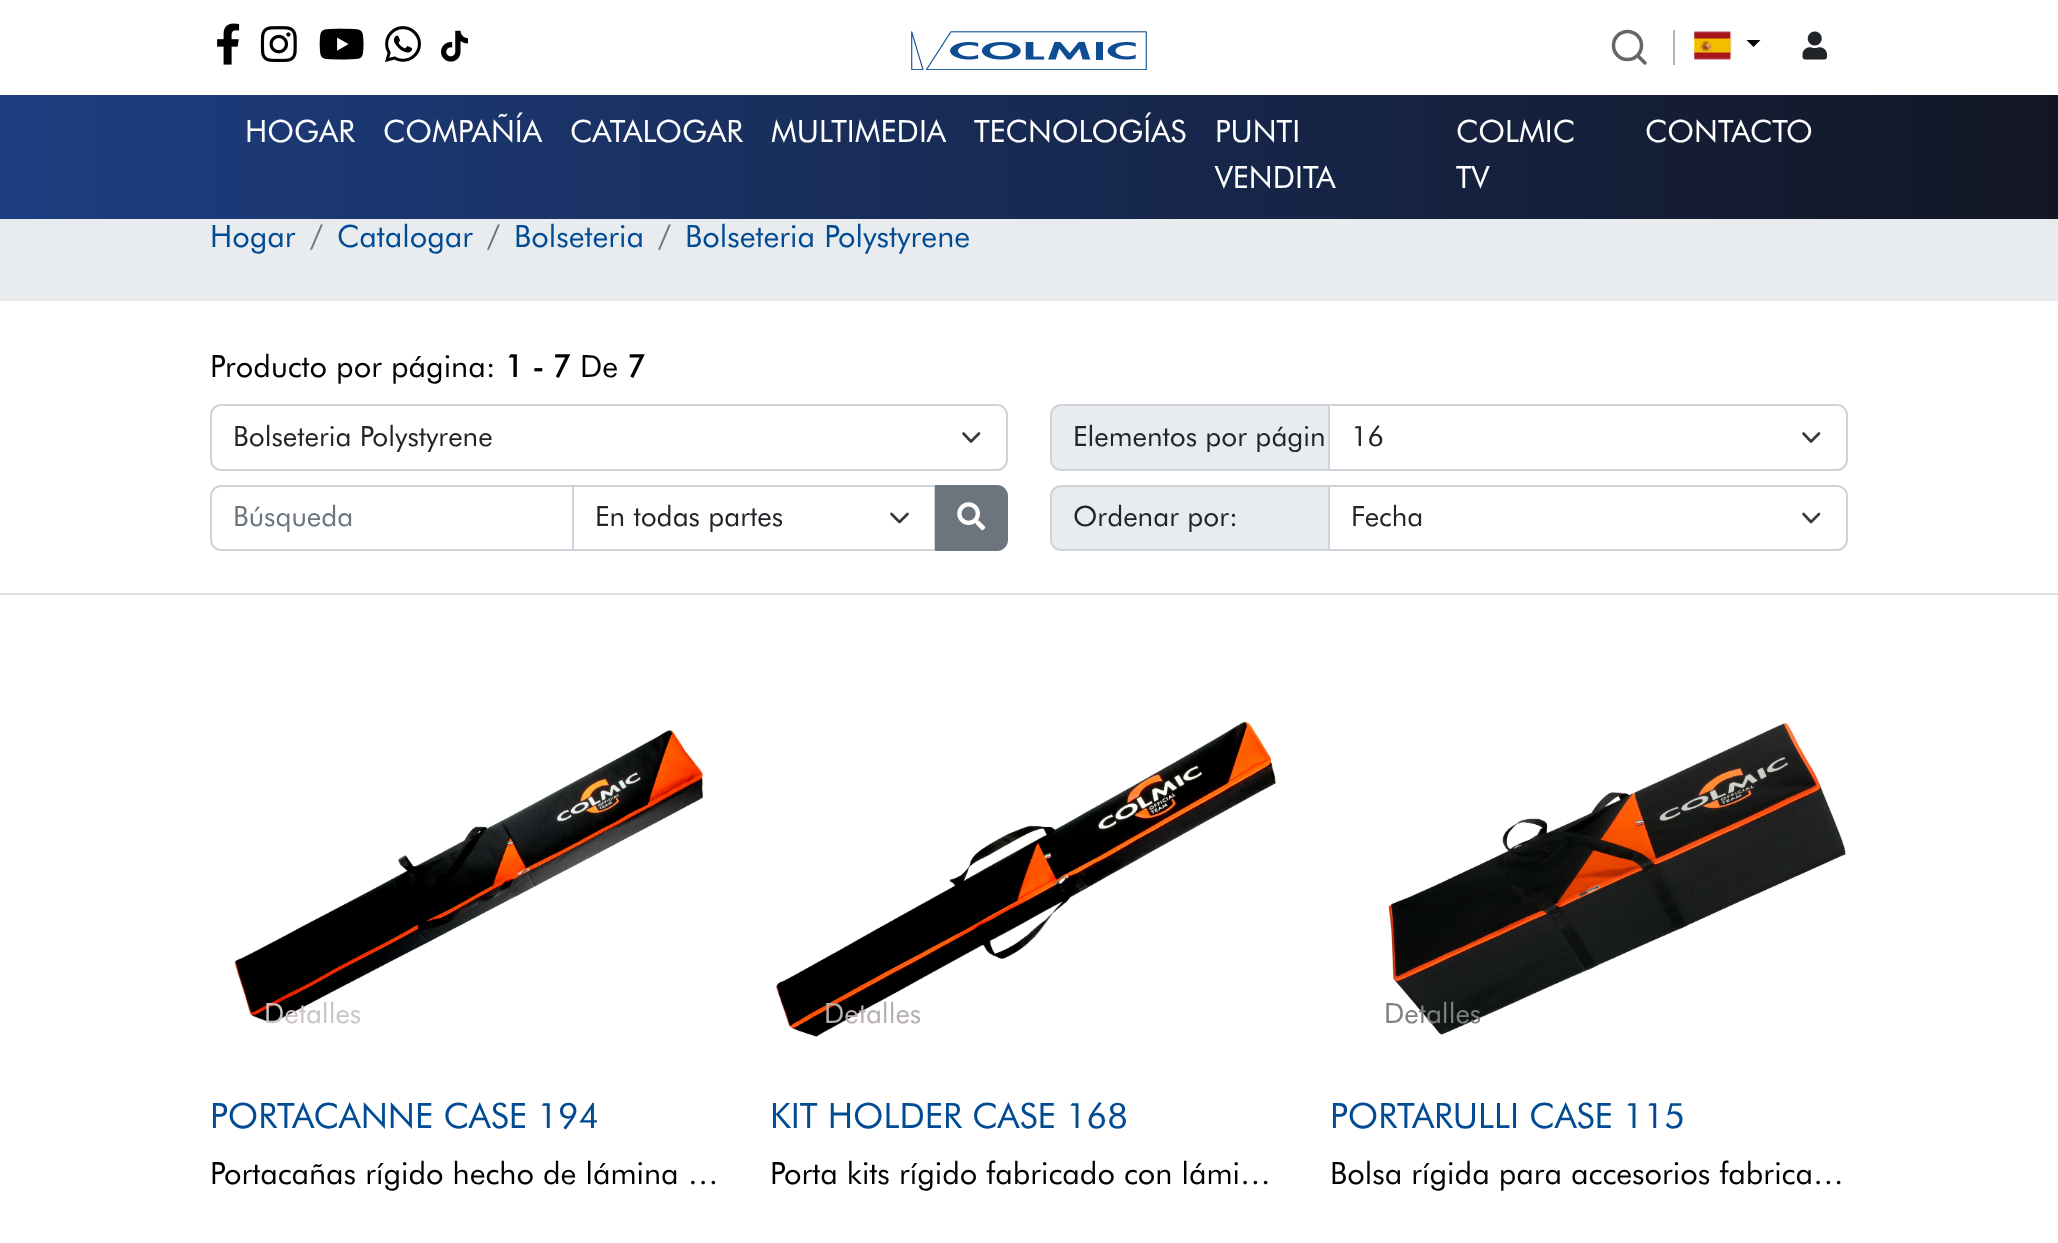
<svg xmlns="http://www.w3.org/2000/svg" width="2058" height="1243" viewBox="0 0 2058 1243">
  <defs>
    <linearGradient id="g1" gradientUnits="userSpaceOnUse" x1="0" y1="157" x2="2058" y2="157"><stop offset="0" stop-color="#1d3e81"/><stop offset="1" stop-color="#121624"/></linearGradient>
  </defs>
  <rect width="100%" height="100%" fill="#ffffff"/>
  <image x="217" y="23" width="23" height="42" href="img1.png"/>
  <image x="260" y="26" width="37" height="37" href="img2.png"/>
  <image x="319" y="28" width="45" height="32" href="img3.png"/>
  <image x="385" y="26" width="36" height="36" href="img4.png"/>
  <image x="441" y="30" width="27" height="32" href="img5.png"/>
  <image x="911" y="31" width="236" height="39" href="img6.png"/>
  <circle cx="1627.5" cy="45.5" r="14" fill="none" stroke="#666666" stroke-width="3.5"/>
  <path d="M1645 63L1637.5 55.5" fill="none" stroke="#666666" stroke-width="3.5" stroke-linecap="round" stroke-linejoin="round"/>
  <rect x="1673" y="30" width="2" height="35" fill="#b3b3b3"/>
  <image x="1694" y="31" width="38" height="29" href="img7.png"/>
  <path d="M1746.5 40H1760.5L1753.5 47Z" fill="#000000"/>
  <image x="1802" y="31" width="25" height="29" href="img8.png"/>
  <rect x="0" y="95" width="2058" height="124" fill="url(#g1)"/>
  <text x="245" y="142" font-family="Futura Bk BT" font-size="30.75" fill="#ffffff">HOGAR</text>
  <text x="383" y="142" font-family="Futura Bk BT" font-size="30.75" fill="#ffffff">COMPAÑÍA</text>
  <text x="570" y="142" font-family="Futura Bk BT" font-size="30.75" fill="#ffffff">CATALOGAR</text>
  <text x="771" y="142" font-family="Futura Bk BT" font-size="30.75" fill="#ffffff">MULTIMEDIA</text>
  <text x="974" y="142" font-family="Futura Bk BT" font-size="30.75" fill="#ffffff">TECNOLOGÍAS</text>
  <text x="1215" y="142" font-family="Futura Bk BT" font-size="30.75" fill="#ffffff">PUNTI</text>
  <text x="1215" y="188" font-family="Futura Bk BT" font-size="30.75" fill="#ffffff">VENDITA</text>
  <text x="1456" y="142" font-family="Futura Bk BT" font-size="30.75" fill="#ffffff">COLMIC</text>
  <text x="1456" y="188" font-family="Futura Bk BT" font-size="30.75" fill="#ffffff">TV</text>
  <text x="1645" y="142" font-family="Futura Bk BT" font-size="30.75" fill="#ffffff">CONTACTO</text>
  <rect x="0" y="219" width="2058" height="82" fill="#e9ecef"/>
  <text x="210" y="247" font-family="Futura Bk BT" font-size="30.75" fill="#004b93">Hogar</text>
  <text x="310" y="247" font-family="Futura Bk BT" font-size="30.75" fill="#6c757d">/</text>
  <text x="337" y="247" font-family="Futura Bk BT" font-size="30.75" fill="#004b93">Catalogar</text>
  <text x="487" y="247" font-family="Futura Bk BT" font-size="30.75" fill="#6c757d">/</text>
  <text x="514" y="247" font-family="Futura Bk BT" font-size="30.75" fill="#004b93">Bolseteria</text>
  <text x="658" y="247" font-family="Futura Bk BT" font-size="30.75" fill="#6c757d">/</text>
  <text x="685" y="247" font-family="Futura Bk BT" font-size="30.75" fill="#004b93">Bolseteria Polystyrene</text>
  <rect x="0" y="593" width="2058" height="2" fill="#dee2e6"/>
  <text x="210" y="377" font-family="Futura Bk BT" font-size="30.75" fill="#000000">Producto por página:</text>
  <text x="505" y="377" font-family="Futura Bk BT" font-size="30.75" font-weight="bold" fill="#000000">1 - 7</text>
  <text x="580" y="377" font-family="Futura Bk BT" font-size="30.75" fill="#000000">De</text>
  <text x="627" y="377" font-family="Futura Bk BT" font-size="30.75" font-weight="bold" fill="#000000">7</text>
  <path d="M963.5 433.5L971 441.5L979 433.5" fill="none" stroke="#343a40" stroke-width="2.6" stroke-linecap="round" stroke-linejoin="round"/>
  <rect x="211" y="405" width="796" height="65" rx="10" fill="none" stroke="#ced4da" stroke-width="2"/>
  <text x="233" y="446" font-family="Futura Bk BT" font-size="28" fill="#212529">Bolseteria Polystyrene</text>
  <path d="M221 486H573V550H221C215.5 550 211 545.5 211 540V496C211 490.5 215.5 486 221 486Z" fill="none" stroke="#ced4da" stroke-width="2"/>
  <text x="233" y="526" font-family="Futura Bk BT" font-size="28" fill="#6c757d">Búsqueda</text>
  <path d="M891.5 514L899.5 522L907.5 514" fill="none" stroke="#343a40" stroke-width="2.6" stroke-linecap="round" stroke-linejoin="round"/>
  <rect x="573" y="486" width="362" height="64" fill="none" stroke="#ced4da" stroke-width="2"/>
  <text x="595" y="526" font-family="Futura Bk BT" font-size="28" fill="#212529">En todas partes</text>
  <path d="M936 486H997C1002.5 486 1007 490.5 1007 496V540C1007 545.5 1002.5 550 997 550H936Z" fill="#6c757d" stroke="#6c757d" stroke-width="2"/>
  <image x="957" y="502" width="29" height="29" href="img9.png"/>
  <path d="M1061 405H1329V470H1061C1055.5 470 1051 465.5 1051 460V415C1051 409.5 1055.5 405 1061 405Z" fill="#e9ecef" stroke="#ced4da" stroke-width="2"/>
  <text x="1073" y="446" font-family="Futura Bk BT" font-size="28" fill="#212529">Elementos por págin</text>
  <path d="M1328 404H1837C1843 404 1848 409 1848 415V460C1848 466 1843 471 1837 471H1328Z" fill="#ffffff"/>
  <path d="M1803.5 433.5L1811 441.5L1819 433.5" fill="none" stroke="#343a40" stroke-width="2.6" stroke-linecap="round" stroke-linejoin="round"/>
  <path d="M1329 405H1837C1842.5 405 1847 409.5 1847 415V460C1847 465.5 1842.5 470 1837 470H1329Z" fill="none" stroke="#ced4da" stroke-width="2"/>
  <text x="1351" y="446" font-family="Futura Bk BT" font-size="28" fill="#212529">16</text>
  <path d="M1061 486H1329V550H1061C1055.5 550 1051 545.5 1051 540V496C1051 490.5 1055.5 486 1061 486Z" fill="#e9ecef" stroke="#ced4da" stroke-width="2"/>
  <text x="1073" y="526" font-family="Futura Bk BT" font-size="28" fill="#212529">Ordenar por:</text>
  <path d="M1328 485H1837C1843 485 1848 490 1848 496V540C1848 546 1843 551 1837 551H1328Z" fill="#ffffff"/>
  <path d="M1803.5 514L1811 522L1819 514" fill="none" stroke="#343a40" stroke-width="2.6" stroke-linecap="round" stroke-linejoin="round"/>
  <path d="M1329 486H1837C1842.5 486 1847 490.5 1847 496V540C1847 545.5 1842.5 550 1837 550H1329Z" fill="none" stroke="#ced4da" stroke-width="2"/>
  <text x="1351" y="526" font-family="Futura Bk BT" font-size="28" fill="#212529">Fecha</text>
  <image x="234" y="730" width="470" height="294" href="img10.png"/>
  <text x="264" y="1023" font-family="Futura Bk BT" font-size="28" fill="#cbc4c3">Detalles</text>
  <text x="210" y="1128" font-family="Futura Bk BT" font-size="35" fill="#004b93">PORTACANNE CASE 194</text>
  <text x="210" y="1184" font-family="Futura Bk BT" font-size="30.75" fill="#000000">Portacañas rígido hecho de lámina …</text>
  <image x="776" y="721" width="500" height="316" href="img11.png"/>
  <text x="824" y="1023" font-family="Futura Bk BT" font-size="28" fill="#b6afac">Detalles</text>
  <text x="770" y="1128" font-family="Futura Bk BT" font-size="35" fill="#004b93">KIT HOLDER CASE 168</text>
  <text x="770" y="1184" font-family="Futura Bk BT" font-size="30.75" fill="#000000">Porta kits rígido fabricado con lámi…</text>
  <image x="1388" y="722" width="458" height="313" href="img12.png"/>
  <text x="1384" y="1023" font-family="Futura Bk BT" font-size="28" fill="#7e807f">Detalles</text>
  <text x="1330" y="1128" font-family="Futura Bk BT" font-size="35" fill="#004b93">PORTARULLI CASE 115</text>
  <text x="1330" y="1184" font-family="Futura Bk BT" font-size="30.75" fill="#000000">Bolsa rígida para accesorios fabrica…</text>
</svg>
